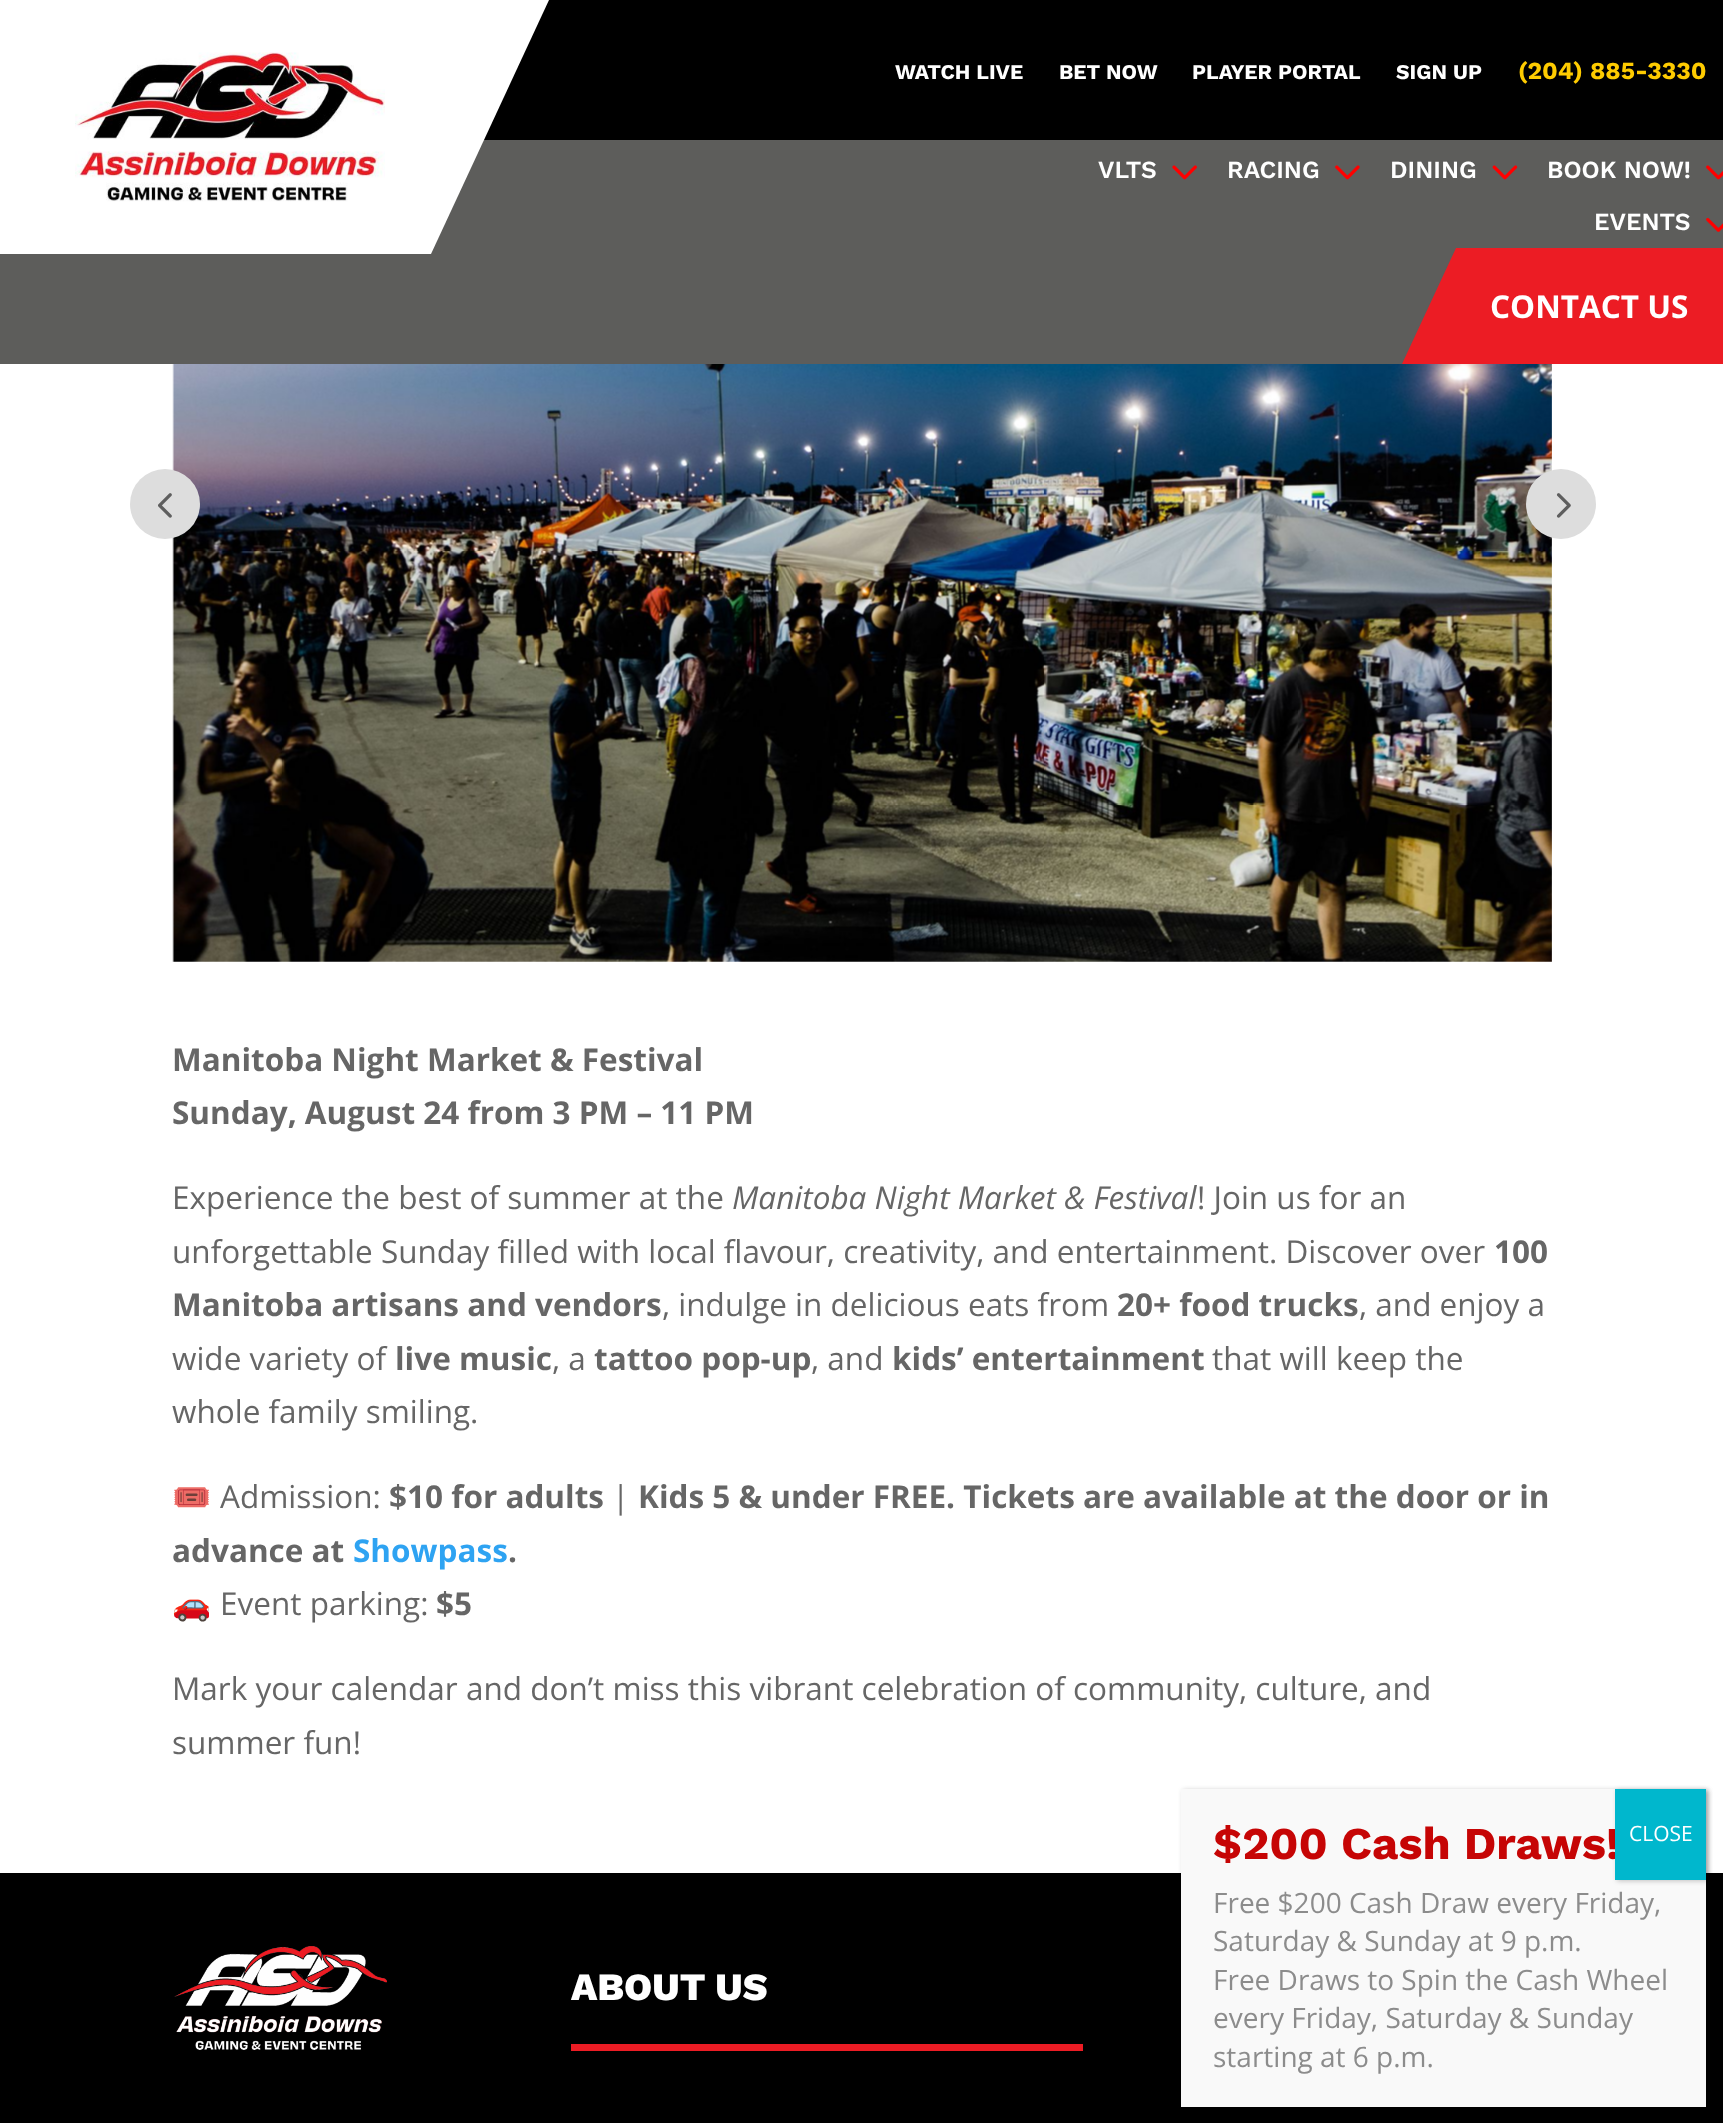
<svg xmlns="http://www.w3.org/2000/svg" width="1723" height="2123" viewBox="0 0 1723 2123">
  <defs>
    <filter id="blur1" x="-50%" y="-200%" width="200%" height="500%"><feGaussianBlur stdDeviation="2.5"/></filter>
  </defs>
  <rect width="100%" height="100%" fill="#ffffff"/>
  <rect x="484" y="0" width="1239" height="140" fill="#000000"/>
  <rect x="0" y="140" width="1723" height="224" fill="#5d5d5b"/>
  <path d="M-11 0H549L431 254H-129Z" fill="#ffffff"/>
  <image x="75" y="52" width="310" height="150" href="img1.png"/>
  <text x="895" y="79" font-family="Work Sans" font-size="21" font-weight="bold" fill="#ffffff">WATCH LIVE</text>
  <text x="1059" y="79" font-family="Work Sans" font-size="21" font-weight="bold" fill="#ffffff">BET NOW</text>
  <text x="1192" y="79" font-family="Work Sans" font-size="21" font-weight="bold" fill="#ffffff">PLAYER PORTAL</text>
  <text x="1396" y="79" font-family="Work Sans" font-size="21" font-weight="bold" fill="#ffffff">SIGN UP</text>
  <text x="1518" y="79" font-family="Work Sans" font-size="24.5" font-weight="bold" fill="#fecb00">(204) 885-3330</text>
  <text x="1098" y="178" font-family="Work Sans" font-size="24.5" font-weight="600" fill="#ffffff">VLTS</text>
  <image x="1172" y="165" width="25" height="15" href="img2.png"/>
  <text x="1227" y="178" font-family="Work Sans" font-size="24.5" font-weight="600" fill="#ffffff">RACING</text>
  <image x="1335" y="165" width="25" height="15" href="img3.png"/>
  <text x="1390" y="178" font-family="Work Sans" font-size="24.5" font-weight="600" fill="#ffffff">DINING</text>
  <image x="1492" y="165" width="26" height="15" href="img4.png"/>
  <text x="1547" y="178" font-family="Work Sans" font-size="24.5" font-weight="600" fill="#ffffff">BOOK NOW!</text>
  <image x="1706" y="165" width="17" height="15" href="img5.png"/>
  <text x="1594" y="230" font-family="Work Sans" font-size="24.5" font-weight="600" fill="#ffffff">EVENTS</text>
  <image x="1706" y="218" width="17" height="14" href="img6.png"/>
  <path d="M1456 248H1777L1723 364H1402Z" fill="#ec1c24"/>
  <text x="1490" y="318" font-family="Open Sans" font-size="31.5" font-weight="bold" fill="#ffffff">CONTACT US</text>
  <image x="172" y="364" width="1380" height="598" href="img8.png"/>
  <circle cx="165" cy="504" r="35" fill="#dddddd"/>
  <image x="158" y="493" width="14" height="25" href="img7.png"/>
  <circle cx="1561" cy="504" r="35" fill="#dddddd"/>
  <image x="1556" y="493" width="15" height="25" href="img9.png"/>
  <text x="172" y="1071" font-family="Open Sans" font-size="31.5" font-weight="bold" fill="#666666">Manitoba Night Market &amp; Festival</text>
  <text x="172" y="1124" font-family="Open Sans" font-size="31.5" font-weight="bold" fill="#666666">Sunday, August 24 from 3 PM – 11 PM</text>
  <text x="172" y="1209" font-family="Open Sans" font-size="31.5" fill="#666666">Experience the best of summer at the</text>
  <text x="732" y="1209" font-family="Open Sans" font-size="31.5" font-style="italic" fill="#666666">Manitoba Night Market &amp; Festival</text>
  <text x="1197" y="1209" font-family="Open Sans" font-size="31.5" fill="#666666">! Join us for an</text>
  <text x="172" y="1263" font-family="Open Sans" font-size="31.5" fill="#666666">unforgettable Sunday filled with local flavour, creativity, and entertainment. Discover over</text>
  <text x="1494" y="1263" font-family="Open Sans" font-size="31.5" font-weight="bold" fill="#666666">100</text>
  <text x="172" y="1316" font-family="Open Sans" font-size="31.5" font-weight="bold" fill="#666666">Manitoba artisans and vendors</text>
  <text x="662" y="1316" font-family="Open Sans" font-size="31.5" fill="#666666">, indulge in delicious eats from</text>
  <text x="1117" y="1316" font-family="Open Sans" font-size="31.5" font-weight="bold" fill="#666666">20+ food trucks</text>
  <text x="1359" y="1316" font-family="Open Sans" font-size="31.5" fill="#666666">, and enjoy a</text>
  <text x="172" y="1370" font-family="Open Sans" font-size="31.5" fill="#666666">wide variety of</text>
  <text x="395" y="1370" font-family="Open Sans" font-size="31.5" font-weight="bold" fill="#666666">live music</text>
  <text x="552" y="1370" font-family="Open Sans" font-size="31.5" fill="#666666">, a</text>
  <text x="594" y="1370" font-family="Open Sans" font-size="31.5" font-weight="bold" fill="#666666">tattoo pop-up</text>
  <text x="811" y="1370" font-family="Open Sans" font-size="31.5" fill="#666666">, and</text>
  <text x="892" y="1370" font-family="Open Sans" font-size="31.5" font-weight="bold" fill="#666666">kids’ entertainment</text>
  <text x="1212" y="1370" font-family="Open Sans" font-size="31.5" fill="#666666">that will keep the</text>
  <text x="172" y="1423" font-family="Open Sans" font-size="31.5" fill="#666666">whole family smiling.</text>
  <text x="172" y="1508" font-family="Noto Color Emoji" font-size="31.5" fill="#666666">🎟️</text>
  <text x="220" y="1508" font-family="Open Sans" font-size="31.5" fill="#666666">Admission:</text>
  <text x="389" y="1508" font-family="Open Sans" font-size="31.5" font-weight="bold" fill="#666666">$10 for adults</text>
  <text x="612" y="1508" font-family="Open Sans" font-size="31.5" fill="#666666">|</text>
  <text x="638" y="1508" font-family="Open Sans" font-size="31.5" font-weight="bold" fill="#666666">Kids 5 &amp; under FREE. Tickets are available at the door or in</text>
  <text x="172" y="1562" font-family="Open Sans" font-size="31.5" font-weight="bold" fill="#666666">advance at</text>
  <text x="353" y="1562" font-family="Open Sans" font-size="31.5" font-weight="bold" fill="#2ea3f2">Showpass</text>
  <text x="508" y="1562" font-family="Open Sans" font-size="31.5" font-weight="bold" fill="#666666">.</text>
  <text x="172" y="1615" font-family="Noto Color Emoji" font-size="31.5" fill="#666666">🚗</text>
  <text x="220" y="1615" font-family="Open Sans" font-size="31.5" fill="#666666">Event parking:</text>
  <text x="436" y="1615" font-family="Open Sans" font-size="31.5" font-weight="bold" fill="#666666">$5</text>
  <text x="172" y="1700" font-family="Open Sans" font-size="31.5" fill="#666666">Mark your calendar and don’t miss this vibrant celebration of community, culture, and</text>
  <text x="172" y="1754" font-family="Open Sans" font-size="31.5" fill="#666666">summer fun!</text>
  <rect x="0" y="1873" width="1723" height="250" fill="#000000"/>
  <image x="174" y="1946" width="213" height="104" href="img10.png"/>
  <text x="571" y="2000" font-family="Work Sans" font-size="38.5" font-weight="800" fill="#ffffff">ABOUT US</text>
  <rect x="571" y="2044" width="512" height="7" fill="#ec1c24"/>
  <rect x="1183" y="1790" width="525" height="319" fill="#020202" fill-opacity="0.23" filter="url(#blur1)"/>
  <rect x="1181" y="1789" width="525" height="318" fill="#f9f9f9"/>
  <text x="1213" y="1859" font-family="Work Sans" font-size="45.5" font-weight="bold" fill="#c60505">$200 Cash Draws!</text>
  <text x="1213" y="1913" font-family="Open Sans" font-size="28" fill="#8c8c8c">Free $200 Cash Draw every Friday,</text>
  <text x="1213" y="1951" font-family="Open Sans" font-size="28" fill="#8c8c8c">Saturday &amp; Sunday at 9 p.m.</text>
  <text x="1213" y="1990" font-family="Open Sans" font-size="28" fill="#8c8c8c">Free Draws to Spin the Cash Wheel</text>
  <text x="1213" y="2028" font-family="Open Sans" font-size="28" fill="#8c8c8c">every Friday, Saturday &amp; Sunday</text>
  <text x="1213" y="2067" font-family="Open Sans" font-size="28" fill="#8c8c8c">starting at 6 p.m.</text>
  <rect x="1617" y="1790" width="91" height="91" fill="#020202" fill-opacity="0.23" filter="url(#blur1)"/>
  <rect x="1615" y="1789" width="91" height="91" fill="#00b7cd"/>
  <text x="1629" y="1841" font-family="Open Sans" font-size="21" fill="#ffffff">CLOSE</text>
</svg>
